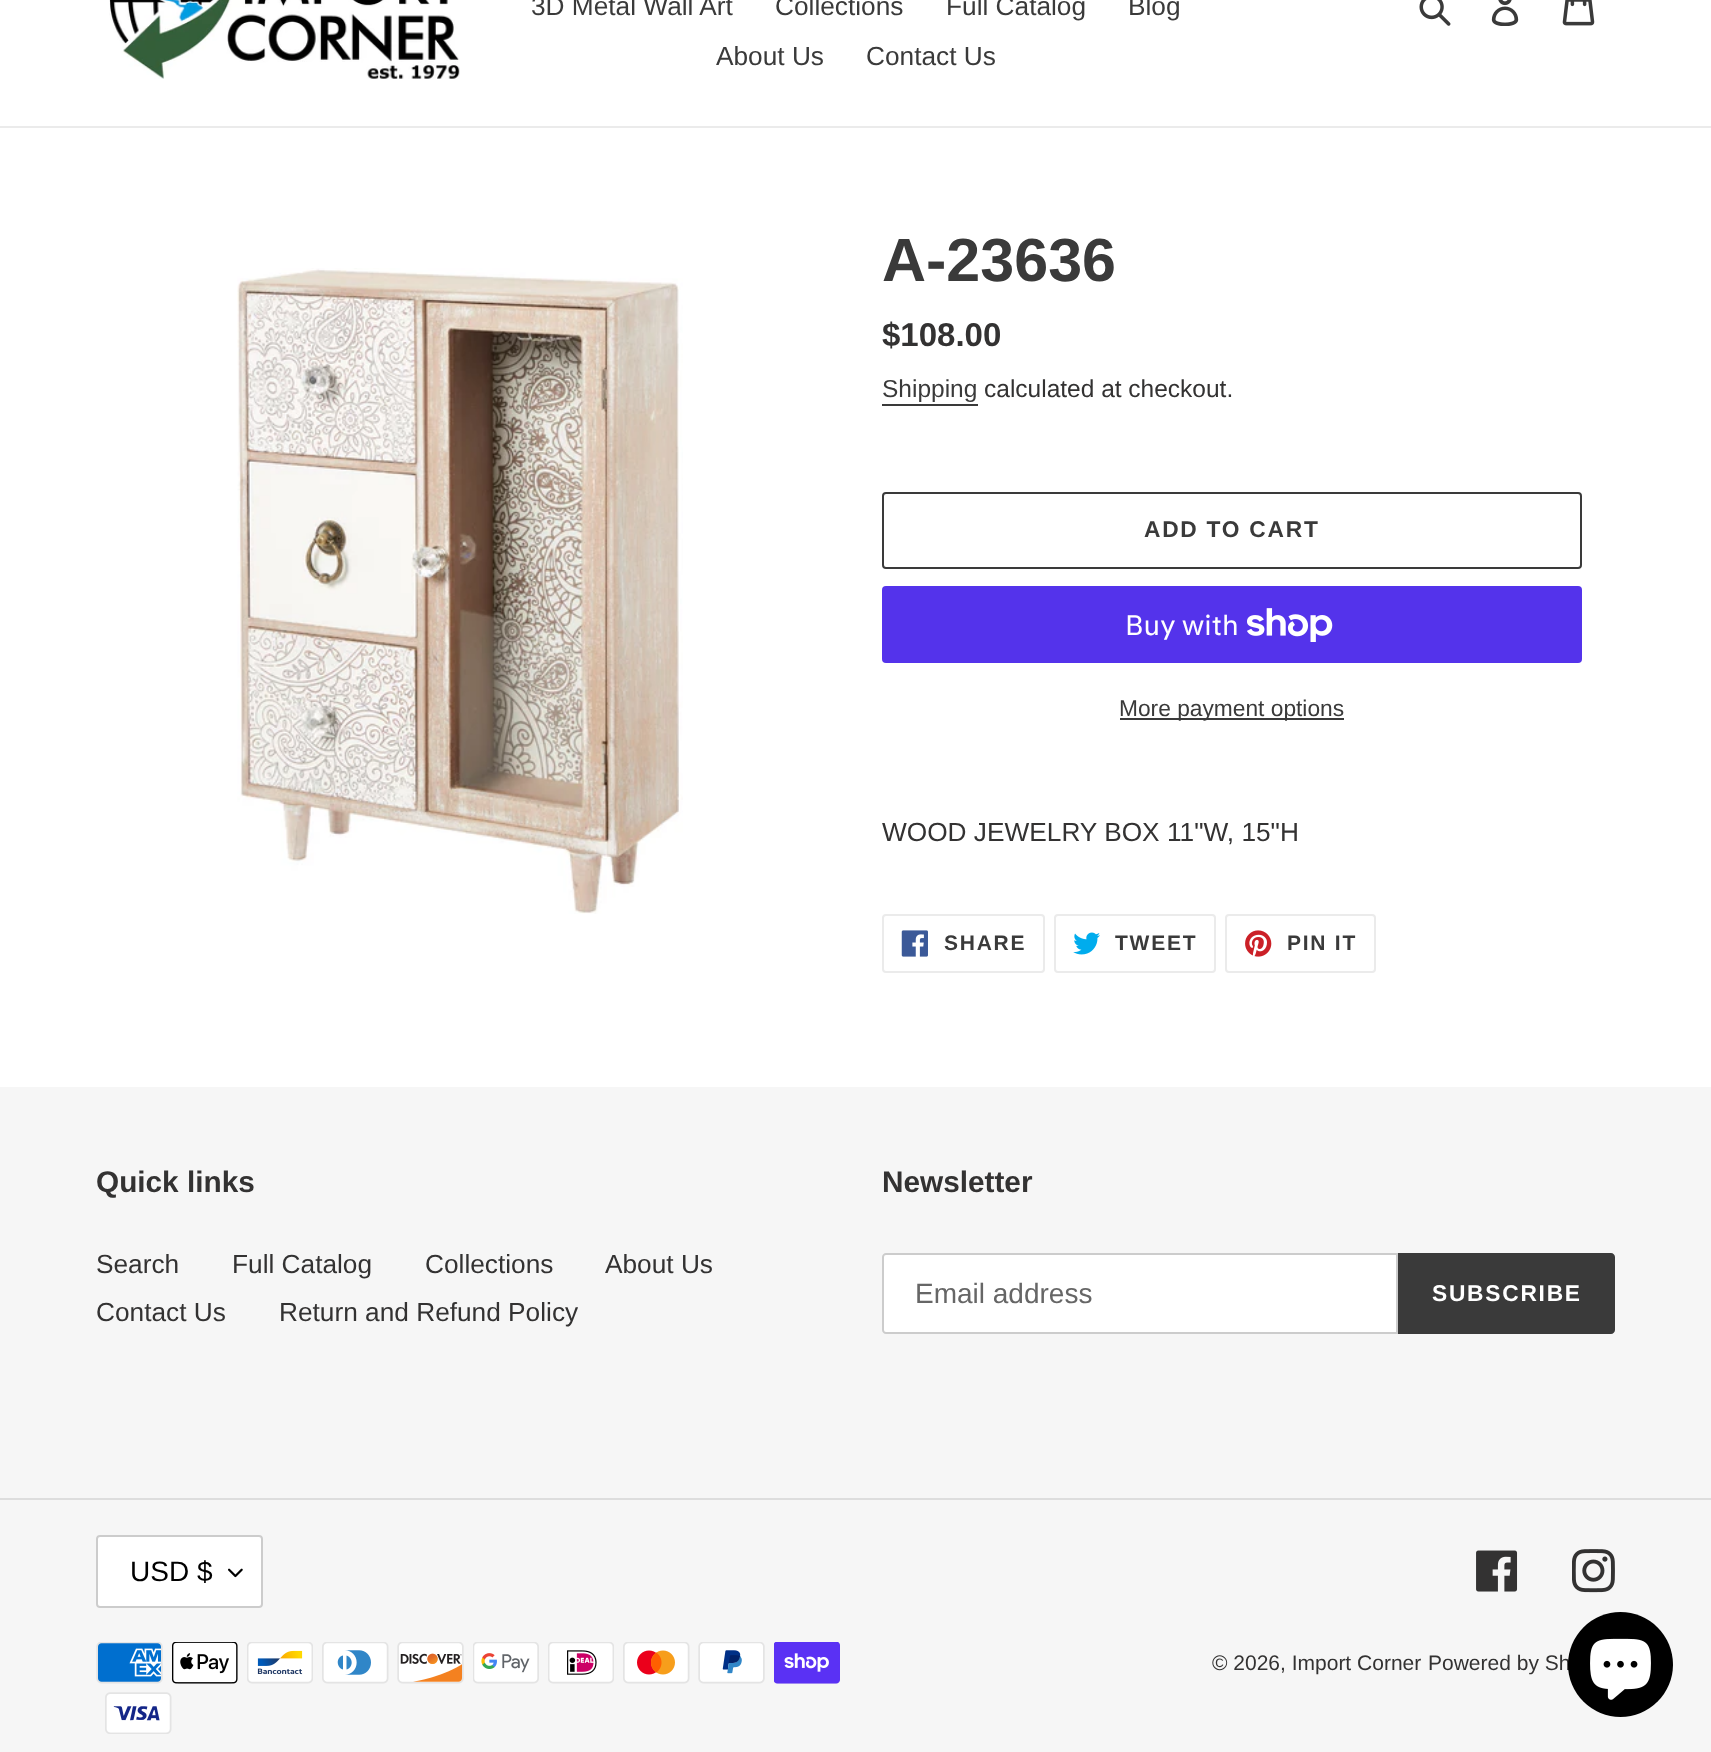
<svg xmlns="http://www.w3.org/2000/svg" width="1711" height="1752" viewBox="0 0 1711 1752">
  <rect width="100%" height="100%" fill="#ffffff"/>
  <rect x="0" y="126" width="1711" height="2" fill="#ebebeb"/>
  <image x="109" y="0" width="351" height="79" href="img1.png"/>
  <text x="531" y="15" font-family="Liberation Sans" font-size="26.25" fill="#3a3a3a">3D Metal Wall Art</text>
  <text x="775" y="15" font-family="Liberation Sans" font-size="26.25" fill="#3a3a3a">Collections</text>
  <text x="946" y="15" font-family="Liberation Sans" font-size="26.25" fill="#3a3a3a">Full Catalog</text>
  <text x="1128" y="15" font-family="Liberation Sans" font-size="26.25" fill="#3a3a3a">Blog</text>
  <text x="716" y="65" font-family="Liberation Sans" font-size="26.25" fill="#3a3a3a">About Us</text>
  <text x="866" y="65" font-family="Liberation Sans" font-size="26.25" fill="#3a3a3a">Contact Us</text>
  <image x="1419" y="0" width="32" height="26" href="img2.png"/>
  <image x="1491" y="0" width="28" height="26" href="img3.png"/>
  <image x="1562" y="0" width="33" height="26" href="img4.png"/>
  <image x="237" y="268" width="446" height="646" href="img5.png"/>
  <text x="882" y="281" font-family="Liberation Sans" font-size="61" font-weight="bold" fill="#3a3a3a">A-23636</text>
  <text x="882" y="346" font-family="Liberation Sans" font-size="33" font-weight="bold" fill="#333232">$108.00</text>
  <text x="882" y="397" font-family="Liberation Sans" font-size="24.5" fill="#3a3a3a">Shipping</text>
  <rect x="882" y="404" width="96" height="2" fill="#3a3a3a"/>
  <text x="984" y="397" font-family="Liberation Sans" font-size="24.5" fill="#333232">calculated at checkout.</text>
  <rect x="883" y="493" width="698" height="75" rx="3" fill="none" stroke="#3a3a3a" stroke-width="2"/>
  <text x="1144" y="537" font-family="Liberation Sans" font-size="22.75" font-weight="bold" letter-spacing="1.75" fill="#3a3a3a">ADD TO CART</text>
  <rect x="882" y="586" width="700" height="77" rx="4" fill="#5433eb"/>
  <text x="1125" y="635" font-family="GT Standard" font-size="28" fill="#ffffff">Buy with</text>
  <image x="1247" y="608" width="86" height="34" href="img6.png"/>
  <rect x="1120" y="718" width="224" height="2" fill="#3a3a3a"/>
  <text x="1119" y="716" font-family="Liberation Sans" font-size="22.75" fill="#3a3a3a">More payment options</text>
  <text x="882" y="841" font-family="Liberation Sans" font-size="26.25" fill="#333232">WOOD JEWELRY BOX 11"W, 15"H</text>
  <rect x="883" y="915" width="161" height="57" rx="3" fill="none" stroke="#ebebeb" stroke-width="2"/>
  <image x="901" y="930" width="27" height="27" href="img7.png"/>
  <text x="944" y="950" font-family="Liberation Sans" font-size="21" font-weight="bold" letter-spacing="1.75" fill="#3a3a3a">SHARE</text>
  <rect x="1055" y="915" width="160" height="57" rx="3" fill="none" stroke="#ebebeb" stroke-width="2"/>
  <image x="1073" y="932" width="27" height="23" href="img8.png"/>
  <text x="1115" y="950" font-family="Liberation Sans" font-size="21" font-weight="bold" letter-spacing="1.75" fill="#3a3a3a">TWEET</text>
  <rect x="1226" y="915" width="149" height="57" rx="3" fill="none" stroke="#ebebeb" stroke-width="2"/>
  <image x="1245" y="930" width="27" height="27" href="img9.png"/>
  <text x="1287" y="950" font-family="Liberation Sans" font-size="21" font-weight="bold" letter-spacing="1.75" fill="#3a3a3a">PIN IT</text>
  <rect x="0" y="1087" width="1711" height="665" fill="#f6f6f6"/>
  <text x="96" y="1192" font-family="Liberation Sans" font-size="29.75" font-weight="bold" fill="#333232">Quick links</text>
  <text x="96" y="1273" font-family="Liberation Sans" font-size="26.25" fill="#333232">Search</text>
  <text x="232" y="1273" font-family="Liberation Sans" font-size="26.25" fill="#333232">Full Catalog</text>
  <text x="425" y="1273" font-family="Liberation Sans" font-size="26.25" fill="#333232">Collections</text>
  <text x="605" y="1273" font-family="Liberation Sans" font-size="26.25" fill="#333232">About Us</text>
  <text x="96" y="1321" font-family="Liberation Sans" font-size="26.25" fill="#333232">Contact Us</text>
  <text x="279" y="1321" font-family="Liberation Sans" font-size="26.25" fill="#333232">Return and Refund Policy</text>
  <text x="882" y="1192" font-family="Liberation Sans" font-size="29.75" font-weight="bold" fill="#333232">Newsletter</text>
  <path d="M886 1254H1397V1333H886C884.5 1333 883 1331.5 883 1330V1257C883 1255.5 884.5 1254 886 1254Z" fill="#ffffff" stroke="#cccccc" stroke-width="2"/>
  <text x="915" y="1303" font-family="Liberation Sans" font-size="28" fill="#666666">Email address</text>
  <path d="M1398 1253H1611C1613 1253 1615 1255 1615 1257V1330C1615 1332 1613 1334 1611 1334H1398Z" fill="#3a3a3a"/>
  <text x="1432" y="1301" font-family="Liberation Sans" font-size="22.75" font-weight="bold" letter-spacing="1.75" fill="#ffffff">SUBSCRIBE</text>
  <rect x="0" y="1498" width="1711" height="2" fill="#dddddd"/>
  <rect x="96" y="1535" width="167" height="73" rx="4" fill="#ffffff"/>
  <image x="228" y="1568" width="15" height="10" href="img10.png"/>
  <rect x="97" y="1536" width="165" height="71" rx="3" fill="none" stroke="#cccccc" stroke-width="2"/>
  <text x="130" y="1581" font-family="Liberation Sans" font-size="28" fill="#000000">USD $</text>
  <image x="1476" y="1550" width="42" height="42" href="img11.png"/>
  <image x="1572" y="1549" width="43" height="44" href="img12.png"/>
  <image x="96" y="1642" width="67" height="42" href="img13.png"/>
  <image x="172" y="1642" width="66" height="42" href="img14.png"/>
  <image x="247" y="1642" width="66" height="42" href="img15.png"/>
  <image x="322" y="1642" width="67" height="42" href="img16.png"/>
  <image x="397" y="1642" width="67" height="42" href="img17.png"/>
  <image x="473" y="1642" width="66" height="42" href="img18.png"/>
  <image x="548" y="1642" width="66" height="42" href="img19.png"/>
  <image x="623" y="1642" width="67" height="42" href="img20.png"/>
  <image x="698" y="1642" width="67" height="42" href="img21.png"/>
  <image x="774" y="1642" width="66" height="42" href="img22.png"/>
  <image x="105" y="1692" width="67" height="42" href="img23.png"/>
  <text x="1212" y="1670" font-family="Liberation Sans" font-size="21" fill="#333232">© 2026, Import Corner</text>
  <text x="1428" y="1670" font-family="Liberation Sans" font-size="21" fill="#333232">Powered by Sh</text>
  <circle cx="1620.5" cy="1664.5" r="52.5" fill="#000000"/>
  <image x="1590" y="1638" width="61" height="62" href="img24.png"/>
</svg>
